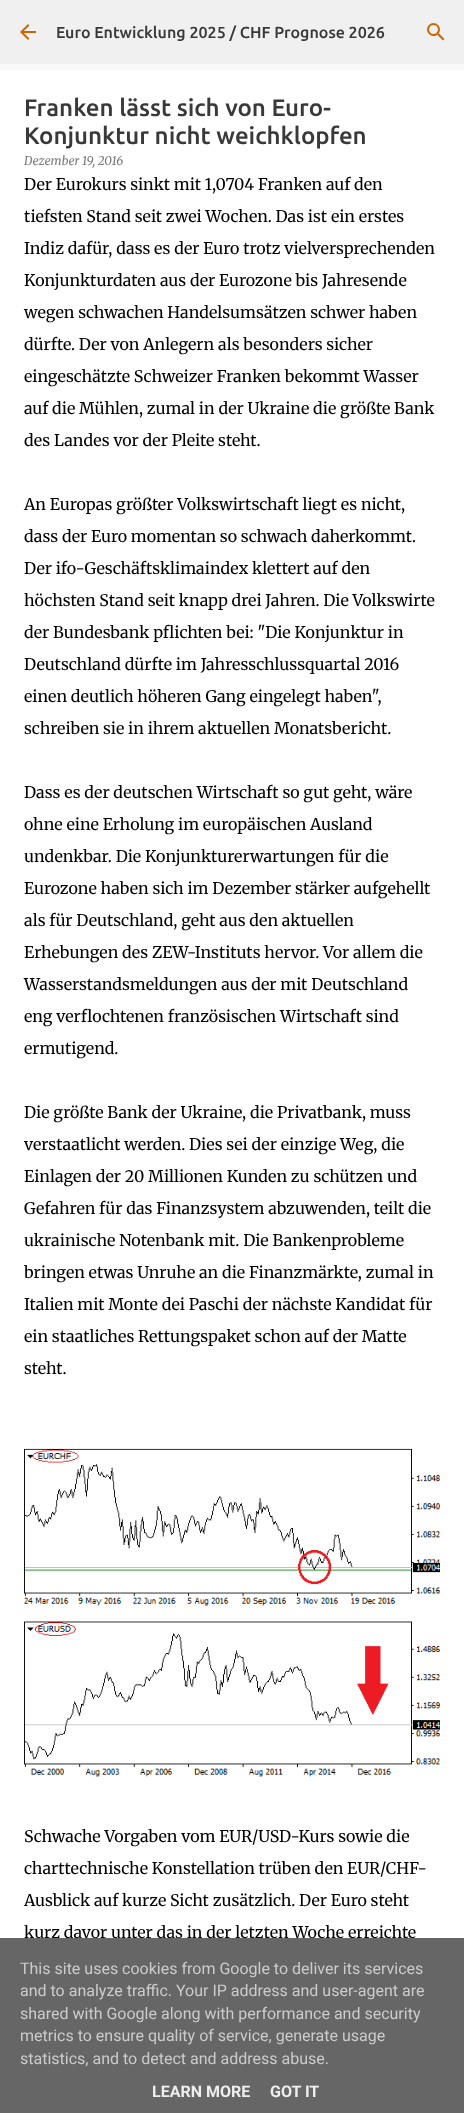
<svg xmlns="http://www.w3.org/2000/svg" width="464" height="2113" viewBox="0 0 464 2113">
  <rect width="100%" height="100%" fill="#f8f8f8"/>
  <rect x="0" y="0" width="464" height="64" fill="#f0f0f0"/>
  <image x="20" y="24" width="16" height="16" href="img1.png"/>
  <text x="56" y="38" font-family="Ubuntu" font-size="16" font-weight="500" fill="#393939">Euro Entwicklung 2025 / CHF Prognose 2026</text>
  <image x="427" y="23" width="18" height="18" href="img2.png"/>
  <rect x="0" y="70" width="464" height="1868" fill="#ffffff"/>
  <text x="24" y="116" font-family="Ubuntu" font-size="24" font-weight="500" fill="#393939">Franken lässt sich von Euro-</text>
  <text x="24" y="144" font-family="Ubuntu" font-size="24" font-weight="500" fill="#393939">Konjunktur nicht weichklopfen</text>
  <text x="24" y="165" font-family="Merriweather" font-size="12" font-style="italic" fill="#797979">Dezember 19, 2016</text>
  <text x="24" y="190" font-family="Merriweather" font-size="16" fill="#000000">Der Eurokurs sinkt mit 1,0704 Franken auf den</text>
  <text x="24" y="222" font-family="Merriweather" font-size="16" fill="#000000">tiefsten Stand seit zwei Wochen. Das ist ein erstes</text>
  <text x="24" y="254" font-family="Merriweather" font-size="16" fill="#000000">Indiz dafür, dass es der Euro trotz vielversprechenden</text>
  <text x="24" y="286" font-family="Merriweather" font-size="16" fill="#000000">Konjunkturdaten aus der Eurozone bis Jahresende</text>
  <text x="24" y="318" font-family="Merriweather" font-size="16" fill="#000000">wegen schwachen Handelsumsätzen schwer haben</text>
  <text x="24" y="350" font-family="Merriweather" font-size="16" fill="#000000">dürfte. Der von Anlegern als besonders sicher</text>
  <text x="24" y="382" font-family="Merriweather" font-size="16" fill="#000000">eingeschätzte Schweizer Franken bekommt Wasser</text>
  <text x="24" y="414" font-family="Merriweather" font-size="16" fill="#000000">auf die Mühlen, zumal in der Ukraine die größte Bank</text>
  <text x="24" y="446" font-family="Merriweather" font-size="16" fill="#000000">des Landes vor der Pleite steht.</text>
  <text x="24" y="510" font-family="Merriweather" font-size="16" fill="#000000">An Europas größter Volkswirtschaft liegt es nicht,</text>
  <text x="24" y="542" font-family="Merriweather" font-size="16" fill="#000000">dass der Euro momentan so schwach daherkommt.</text>
  <text x="24" y="574" font-family="Merriweather" font-size="16" fill="#000000">Der ifo-Geschäftsklimaindex klettert auf den</text>
  <text x="24" y="606" font-family="Merriweather" font-size="16" fill="#000000">höchsten Stand seit knapp drei Jahren. Die Volkswirte</text>
  <text x="24" y="638" font-family="Merriweather" font-size="16" fill="#000000">der Bundesbank pflichten bei: "Die Konjunktur in</text>
  <text x="24" y="670" font-family="Merriweather" font-size="16" fill="#000000">Deutschland dürfte im Jahresschlussquartal 2016</text>
  <text x="24" y="702" font-family="Merriweather" font-size="16" fill="#000000">einen deutlich höheren Gang eingelegt haben",</text>
  <text x="24" y="734" font-family="Merriweather" font-size="16" fill="#000000">schreiben sie in ihrem aktuellen Monatsbericht.</text>
  <text x="24" y="798" font-family="Merriweather" font-size="16" fill="#000000">Dass es der deutschen Wirtschaft so gut geht, wäre</text>
  <text x="24" y="830" font-family="Merriweather" font-size="16" fill="#000000">ohne eine Erholung im europäischen Ausland</text>
  <text x="24" y="862" font-family="Merriweather" font-size="16" fill="#000000">undenkbar. Die Konjunkturerwartungen für die</text>
  <text x="24" y="894" font-family="Merriweather" font-size="16" fill="#000000">Eurozone haben sich im Dezember stärker aufgehellt</text>
  <text x="24" y="926" font-family="Merriweather" font-size="16" fill="#000000">als für Deutschland, geht aus den aktuellen</text>
  <text x="24" y="958" font-family="Merriweather" font-size="16" fill="#000000">Erhebungen des ZEW-Instituts hervor. Vor allem die</text>
  <text x="24" y="990" font-family="Merriweather" font-size="16" fill="#000000">Wasserstandsmeldungen aus der mit Deutschland</text>
  <text x="24" y="1022" font-family="Merriweather" font-size="16" fill="#000000">eng verflochtenen französischen Wirtschaft sind</text>
  <text x="24" y="1054" font-family="Merriweather" font-size="16" fill="#000000">ermutigend.</text>
  <text x="24" y="1118" font-family="Merriweather" font-size="16" fill="#000000">Die größte Bank der Ukraine, die Privatbank, muss</text>
  <text x="24" y="1150" font-family="Merriweather" font-size="16" fill="#000000">verstaatlicht werden. Dies sei der einzige Weg, die</text>
  <text x="24" y="1182" font-family="Merriweather" font-size="16" fill="#000000">Einlagen der 20 Millionen Kunden zu schützen und</text>
  <text x="24" y="1214" font-family="Merriweather" font-size="16" fill="#000000">Gefahren für das Finanzsystem abzuwenden, teilt die</text>
  <text x="24" y="1246" font-family="Merriweather" font-size="16" fill="#000000">ukrainische Notenbank mit. Die Bankenprobleme</text>
  <text x="24" y="1278" font-family="Merriweather" font-size="16" fill="#000000">bringen etwas Unruhe an die Finanzmärkte, zumal in</text>
  <text x="24" y="1310" font-family="Merriweather" font-size="16" fill="#000000">Italien mit Monte dei Paschi der nächste Kandidat für</text>
  <text x="24" y="1342" font-family="Merriweather" font-size="16" fill="#000000">ein staatliches Rettungspaket schon auf der Matte</text>
  <text x="24" y="1374" font-family="Merriweather" font-size="16" fill="#000000">steht.</text>
  <image x="24" y="1448" width="416" height="329" href="img3.png"/>
  <text x="24" y="1842" font-family="Merriweather" font-size="16" fill="#000000">Schwache Vorgaben vom EUR/USD-Kurs sowie die</text>
  <text x="24" y="1874" font-family="Merriweather" font-size="16" fill="#000000">charttechnische Konstellation trüben den EUR/CHF-</text>
  <text x="24" y="1906" font-family="Merriweather" font-size="16" fill="#000000">Ausblick auf kurze Sicht zusätzlich. Der Euro steht</text>
  <text x="24" y="1938" font-family="Merriweather" font-size="16" fill="#000000">kurz davor unter das in der letzten Woche erreichte</text>
  <rect x="0" y="1938" width="464" height="175" fill="#666666"/>
  <text x="20" y="1974" font-family="Roboto" font-size="16" fill="#cccccc">This site uses cookies from Google to deliver its services</text>
  <text x="20" y="1996" font-family="Roboto" font-size="16" fill="#cccccc">and to analyze traffic. Your IP address and user-agent are</text>
  <text x="20" y="2019" font-family="Roboto" font-size="16" fill="#cccccc">shared with Google along with performance and security</text>
  <text x="20" y="2041" font-family="Roboto" font-size="16" fill="#cccccc">metrics to ensure quality of service, generate usage</text>
  <text x="20" y="2064" font-family="Roboto" font-size="16" fill="#cccccc">statistics, and to detect and address abuse.</text>
  <text x="152" y="2097" font-family="Roboto" font-size="16" font-weight="bold" fill="#eeeeee">LEARN MORE</text>
  <text x="270" y="2097" font-family="Roboto" font-size="16" font-weight="bold" fill="#eeeeee">GOT IT</text>
</svg>
